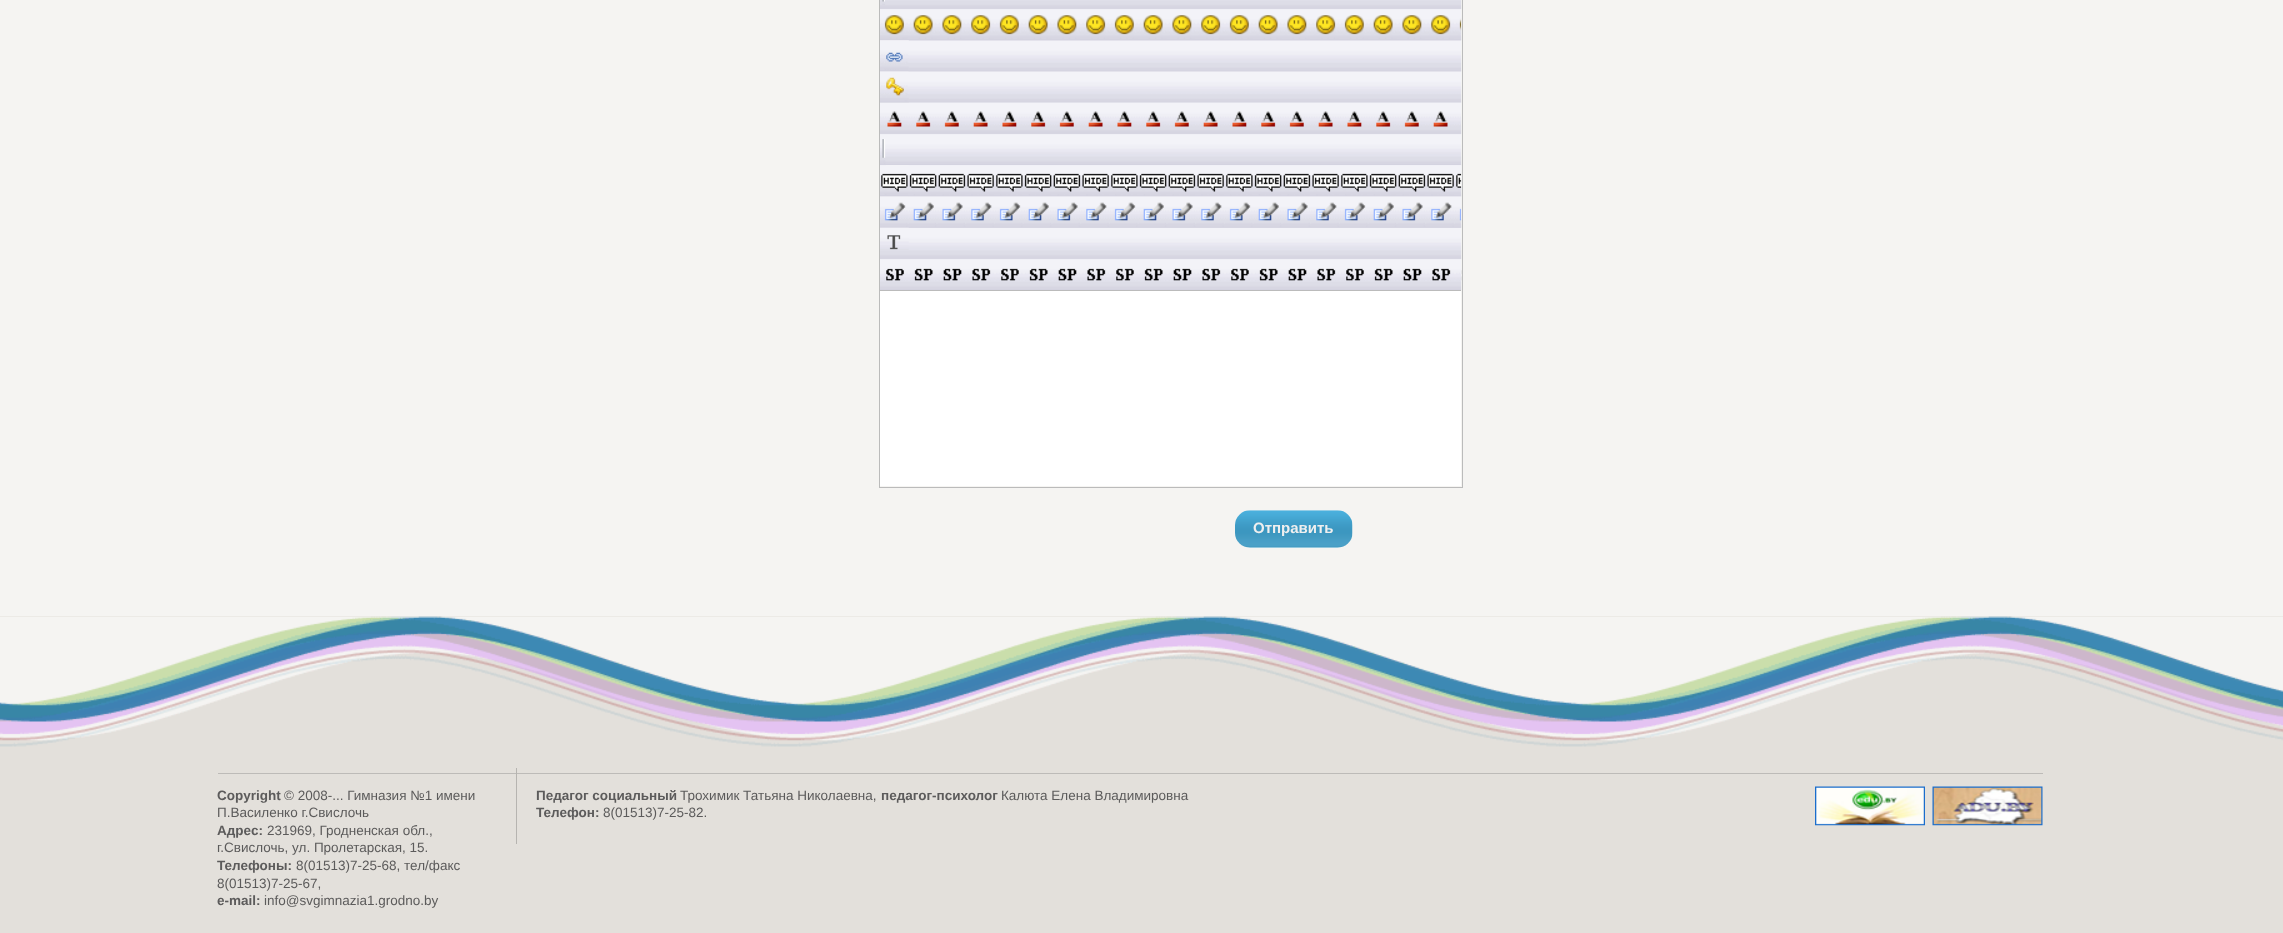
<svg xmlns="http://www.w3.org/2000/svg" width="2283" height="933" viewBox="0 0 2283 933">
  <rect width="100%" height="100%" fill="#f5f4f2"/>
  <rect x="879.5" y="-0.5" width="583" height="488" fill="none" stroke="#bbbbbb"/>
  <image x="880" y="0" width="582" height="291" href="img1.png"/>
  <rect x="880" y="290" width="581" height="1" fill="#bbbbbb"/>
  <image x="882" y="0" width="3" height="5" href="img2.png"/>
  <image x="880" y="15" width="582" height="26" href="img3.png"/>
  <image x="880" y="17" width="28" height="24" href="img4.png"/>
  <image x="880" y="40" width="29" height="32" href="img5.png"/>
  <image x="880" y="102" width="581" height="25" href="img7.png"/>
  <image x="880" y="71" width="29" height="32" href="img6.png"/>
  <image x="880" y="102" width="29" height="21" href="img8.png"/>
  <image x="880" y="165" width="582" height="32" href="img10.png"/>
  <image x="880" y="139" width="6" height="27" href="img9.png"/>
  <image x="880" y="196" width="582" height="32" href="img12.png"/>
  <image x="880" y="165" width="29" height="32" href="img11.png"/>
  <image x="880" y="196" width="29" height="23" href="img13.png"/>
  <image x="880" y="227" width="29" height="23" href="img14.png"/>
  <image x="904" y="268" width="558" height="13" href="img15.png"/>
  <image x="884" y="268" width="20" height="13" href="img16.png"/>
  <rect x="880" y="291" width="581" height="195" fill="#ffffff"/>
  <image x="1235" y="510" width="118" height="38" href="img17.png"/>
  <text x="1253" y="533" font-family="Liberation Sans" font-size="15" font-weight="bold" fill="#efefef">Отправить</text>
  <rect x="0" y="616" width="2283" height="317" fill="#e3e0db"/>
  <image x="0" y="616" width="2283" height="131" href="img18.png"/>
  <rect x="218" y="773" width="1825" height="1" fill="#bdbbb8"/>
  <text x="217" y="800" font-family="Liberation Sans" font-size="13.5" font-weight="bold" fill="#5c5b5b">Copyright</text>
  <text x="284" y="800" font-family="Liberation Sans" font-size="13.5" fill="#5c5b5b">© 2008-... Гимназия №1 имени</text>
  <text x="217" y="817" font-family="Liberation Sans" font-size="13.5" fill="#5c5b5b">П.Василенко г.Свислочь</text>
  <text x="217" y="835" font-family="Liberation Sans" font-size="13.5" font-weight="bold" fill="#5c5b5b">Адрес:</text>
  <text x="267" y="835" font-family="Liberation Sans" font-size="13.5" fill="#5c5b5b">231969, Гродненская обл.,</text>
  <text x="217" y="852" font-family="Liberation Sans" font-size="13.5" fill="#5c5b5b">г.Свислочь, ул. Пролетарская, 15.</text>
  <text x="217" y="870" font-family="Liberation Sans" font-size="13.5" font-weight="bold" fill="#5c5b5b">Телефоны:</text>
  <text x="296" y="870" font-family="Liberation Sans" font-size="13.5" fill="#5c5b5b">8(01513)7-25-68, тел/факс</text>
  <text x="217" y="888" font-family="Liberation Sans" font-size="13.5" fill="#5c5b5b">8(01513)7-25-67,</text>
  <text x="217" y="905" font-family="Liberation Sans" font-size="13.5" font-weight="bold" fill="#5c5b5b">e-mail:</text>
  <text x="264" y="905" font-family="Liberation Sans" font-size="13.5" fill="#5c5b5b">info@svgimnazia1.grodno.by</text>
  <rect x="516" y="768" width="1" height="76" fill="#b6b4b0"/>
  <text x="536" y="800" font-family="Liberation Sans" font-size="13.5" font-weight="bold" fill="#5c5b5b">Педагог социальный</text>
  <text x="680" y="800" font-family="Liberation Sans" font-size="13.5" fill="#5c5b5b">Трохимик Татьяна Николаевна,</text>
  <text x="881" y="800" font-family="Liberation Sans" font-size="13.5" font-weight="bold" fill="#5c5b5b">педагог-психолог</text>
  <text x="1001" y="800" font-family="Liberation Sans" font-size="13.5" fill="#5c5b5b">Калюта Елена Владимировна</text>
  <text x="536" y="817" font-family="Liberation Sans" font-size="13.5" font-weight="bold" fill="#5c5b5b">Телефон:</text>
  <text x="603" y="817" font-family="Liberation Sans" font-size="13.5" fill="#5c5b5b">8(01513)7-25-82.</text>
  <image x="1815" y="786" width="110" height="40" href="img19.png"/>
  <image x="1932" y="786" width="111" height="40" href="img20.png"/>
</svg>
